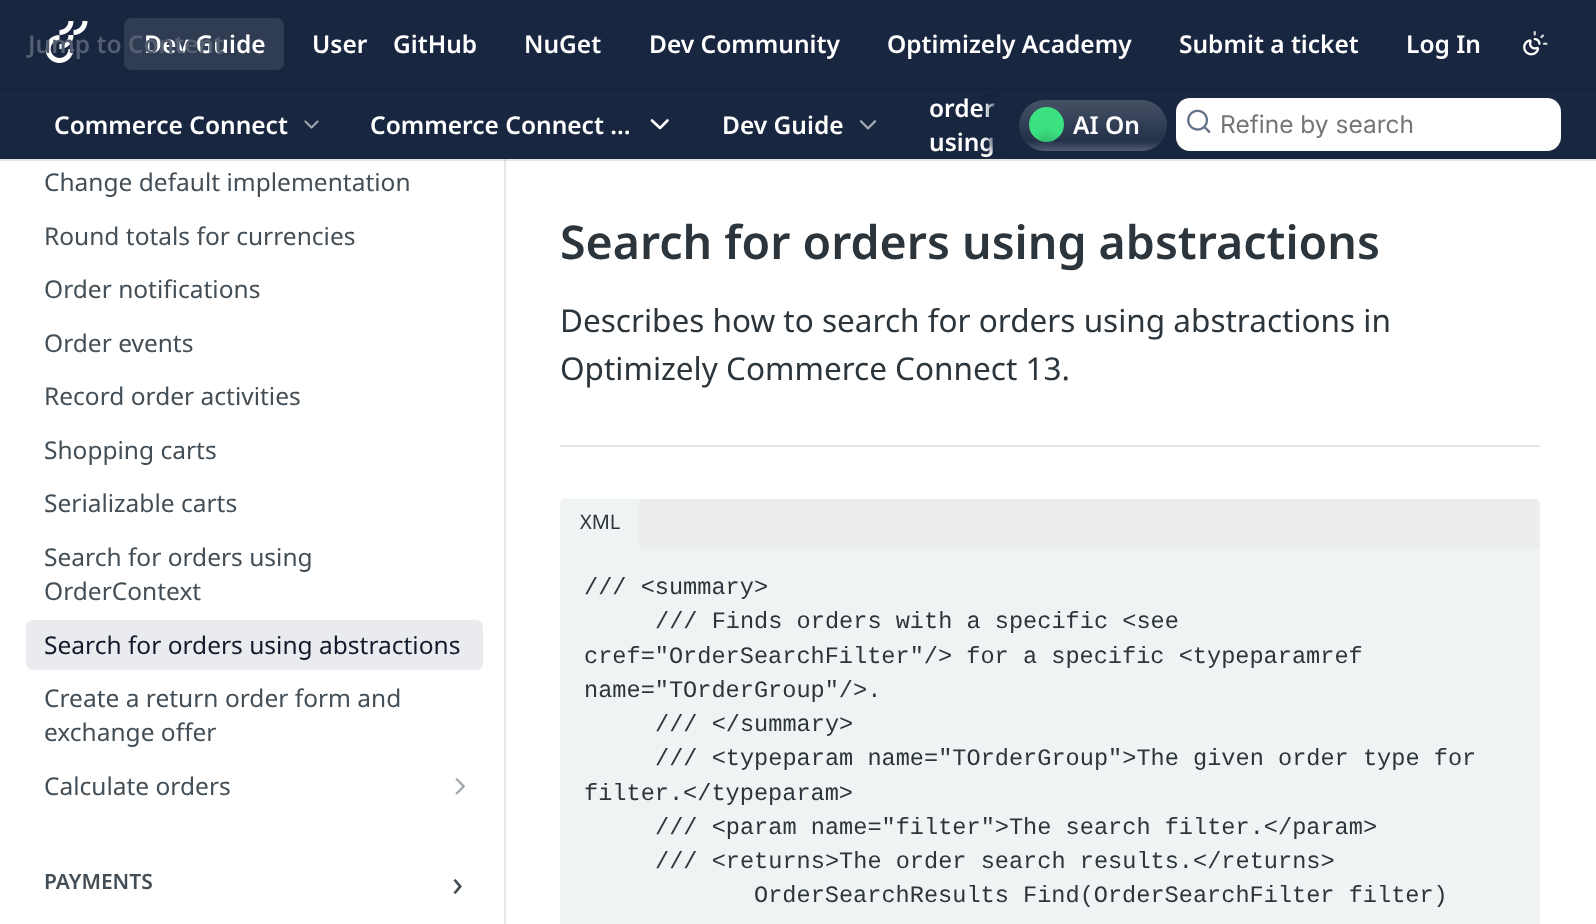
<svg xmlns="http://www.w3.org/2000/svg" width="1596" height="924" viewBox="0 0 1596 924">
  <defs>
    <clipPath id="clip1"><rect x="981" y="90" width="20" height="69"/></clipPath>
    <filter id="blur1" x="-50%" y="-200%" width="200%" height="500%"><feGaussianBlur stdDeviation="5"/></filter>
    <linearGradient id="g1" gradientUnits="userSpaceOnUse" x1="1093" y1="100" x2="1093" y2="151"><stop offset="0" stop-color="#465165"/><stop offset="0.8" stop-color="#243149"/><stop offset="1" stop-color="#525c6f"/></linearGradient>
    <radialGradient id="g2" gradientUnits="userSpaceOnUse" cx="1047" cy="146" r="39"><stop offset="0" stop-color="#2fb367"/><stop offset="0.44" stop-color="#3be081"/></radialGradient>
  </defs>
  <rect width="100%" height="100%" fill="#ffffff"/>
  <path d="M2 159H504V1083H506V159Z" fill="#e6e6e6"/>
  <rect x="0" y="159" width="1596" height="2" fill="#000000" fill-opacity="0.1"/>
  <rect x="0" y="0" width="1596" height="159" fill="#18263f"/>
  <rect x="0" y="88" width="1596" height="2" fill="#162239"/>
  <image x="46" y="21" width="42" height="42" href="img1.png"/>
  <rect x="124" y="18" width="160" height="52" rx="7" fill="#2f3c52"/>
  <text x="144" y="53" font-family="Noto Sans" font-size="24.5" font-weight="600" fill="#ffffff">Dev Guide</text>
  <text x="28" y="53" font-family="Noto Sans" font-size="24.5" font-weight="600" fill="#545e70">Jump to Content</text>
  <text x="312" y="53" font-family="Noto Sans" font-size="24.5" font-weight="600" fill="#ffffff">User</text>
  <text x="393" y="53" font-family="Noto Sans" font-size="24.5" font-weight="600" fill="#ffffff">GitHub</text>
  <text x="524" y="53" font-family="Noto Sans" font-size="24.5" font-weight="600" fill="#ffffff">NuGet</text>
  <text x="649" y="53" font-family="Noto Sans" font-size="24.5" font-weight="600" fill="#ffffff">Dev Community</text>
  <text x="887" y="53" font-family="Noto Sans" font-size="24.5" font-weight="600" fill="#ffffff">Optimizely Academy</text>
  <text x="1179" y="53" font-family="Noto Sans" font-size="24.5" font-weight="600" fill="#ffffff">Submit a ticket</text>
  <text x="1406" y="53" font-family="Noto Sans" font-size="24.5" font-weight="600" fill="#ffffff">Log In</text>
  <image x="1523" y="31" width="25" height="25" href="img2.png"/>
  <text x="54" y="134" font-family="Noto Sans" font-size="24.5" font-weight="600" fill="#ffffff">Commerce Connect</text>
  <image x="304" y="120" width="15" height="9" href="img3.png"/>
  <text x="370" y="134" font-family="Noto Sans" font-size="24.5" font-weight="600" fill="#ffffff">Commerce Connect …</text>
  <path d="M652 120.5L660 128L667.5 120.5" fill="none" stroke="#ffffff" stroke-width="2.6" stroke-linecap="round" stroke-linejoin="round"/>
  <text x="722" y="134" font-family="Noto Sans" font-size="24.5" font-weight="600" fill="#ffffff">Dev Guide</text>
  <image x="859" y="120" width="18" height="10" href="img4.png"/>
  <text x="929" y="117" font-family="Noto Sans" font-size="24.5" font-weight="600" fill="#ffffff">order</text>
  <text x="929" y="151" font-family="Noto Sans" font-size="24.5" font-weight="600" fill="#ffffff">using</text>
  <g clip-path="url(#clip1)">
    <rect x="991" y="100" width="574" height="49" fill="#18263f" filter="url(#blur1)"/>
  </g>
  <rect x="1019" y="100" width="148" height="51" rx="25.5" fill="url(#g1)"/>
  <circle cx="1046.5" cy="124.5" r="17.5" fill="url(#g2)"/>
  <text x="1073" y="134" font-family="Noto Sans" font-size="24.5" font-weight="600" fill="#ffffff">AI On</text>
  <rect x="1176" y="98" width="385" height="53" rx="14" fill="#ffffff"/>
  <image x="1187" y="109" width="24" height="24" href="img5.png"/>
  <text x="1220" y="133" font-family="Inter" font-size="24.5" fill="#757575">Refine by search</text>
  <text x="44" y="191" font-family="Noto Sans" font-size="24.5" fill="#434e56">Change default implementation</text>
  <text x="44" y="245" font-family="Noto Sans" font-size="24.5" fill="#434e56">Round totals for currencies</text>
  <text x="44" y="298" font-family="Noto Sans" font-size="24.5" fill="#434e56">Order notifications</text>
  <text x="44" y="352" font-family="Noto Sans" font-size="24.5" fill="#434e56">Order events</text>
  <text x="44" y="405" font-family="Noto Sans" font-size="24.5" fill="#434e56">Record order activities</text>
  <text x="44" y="459" font-family="Noto Sans" font-size="24.5" fill="#434e56">Shopping carts</text>
  <text x="44" y="512" font-family="Noto Sans" font-size="24.5" fill="#434e56">Serializable carts</text>
  <text x="44" y="566" font-family="Noto Sans" font-size="24.5" fill="#434e56">Search for orders using</text>
  <text x="44" y="600" font-family="Noto Sans" font-size="24.5" fill="#434e56">OrderContext</text>
  <rect x="26" y="620" width="457" height="50" rx="7" fill="#eaebee"/>
  <text x="44" y="654" font-family="Noto Sans" font-size="24.5" fill="#111b2c">Search for orders using abstractions</text>
  <text x="44" y="707" font-family="Noto Sans" font-size="24.5" fill="#434e56">Create a return order form and</text>
  <text x="44" y="741" font-family="Noto Sans" font-size="24.5" fill="#434e56">exchange offer</text>
  <text x="44" y="795" font-family="Noto Sans" font-size="24.5" fill="#434e56">Calculate orders</text>
  <image x="455" y="778" width="10" height="17" href="img6.png"/>
  <text x="44" y="889" font-family="Noto Sans" font-size="21" font-weight="600" fill="#434e56">PAYMENTS</text>
  <text x="452" y="896" font-family="Noto Sans" font-size="36" fill="#434e56">›</text>
  <rect x="560" y="445" width="980" height="2" fill="#e6e6e6"/>
  <text x="560" y="259" font-family="Noto Sans" font-size="46.5" font-weight="600" fill="#2b353b">Search for orders using abstractions</text>
  <text x="560" y="332" font-family="Noto Sans" font-size="31.5" fill="#2b353b">Describes how to search for orders using abstractions in</text>
  <text x="560" y="380" font-family="Noto Sans" font-size="31.5" fill="#2b353b">Optimizely Commerce Connect 13.</text>
  <path d="M565 499H1535C1538 499 1540 501 1540 504V548H560V504C560 501 562 499 565 499Z" fill="#ebedef"/>
  <path d="M565 499H639V548H560V504C560 501 562 499 565 499Z" fill="#f0f3f4"/>
  <text x="580" y="529" font-family="Noto Sans" font-size="20" fill="#2b353b">XML</text>
  <rect x="560" y="548" width="980" height="376" fill="#f0f3f4"/>
  <text x="584" y="594" font-family="Liberation Mono" font-size="23.6" fill="#2b353b">/// &lt;summary&gt;</text>
  <text x="655" y="628" font-family="Liberation Mono" font-size="23.6" fill="#2b353b">/// Finds orders with a specific &lt;see</text>
  <text x="584" y="663" font-family="Liberation Mono" font-size="23.6" fill="#2b353b">cref="OrderSearchFilter"/&gt; for a specific &lt;typeparamref</text>
  <text x="584" y="697" font-family="Liberation Mono" font-size="23.6" fill="#2b353b">name="TOrderGroup"/&gt;.</text>
  <text x="655" y="731" font-family="Liberation Mono" font-size="23.6" fill="#2b353b">/// &lt;/summary&gt;</text>
  <text x="655" y="765" font-family="Liberation Mono" font-size="23.6" fill="#2b353b">/// &lt;typeparam name="TOrderGroup"&gt;The given order type for</text>
  <text x="584" y="800" font-family="Liberation Mono" font-size="23.6" fill="#2b353b">filter.&lt;/typeparam&gt;</text>
  <text x="655" y="834" font-family="Liberation Mono" font-size="23.6" fill="#2b353b">/// &lt;param name="filter"&gt;The search filter.&lt;/param&gt;</text>
  <text x="655" y="868" font-family="Liberation Mono" font-size="23.6" fill="#2b353b">/// &lt;returns&gt;The order search results.&lt;/returns&gt;</text>
  <text x="754" y="902" font-family="Liberation Mono" font-size="23.6" fill="#2b353b">OrderSearchResults Find(OrderSearchFilter filter)</text>
</svg>
